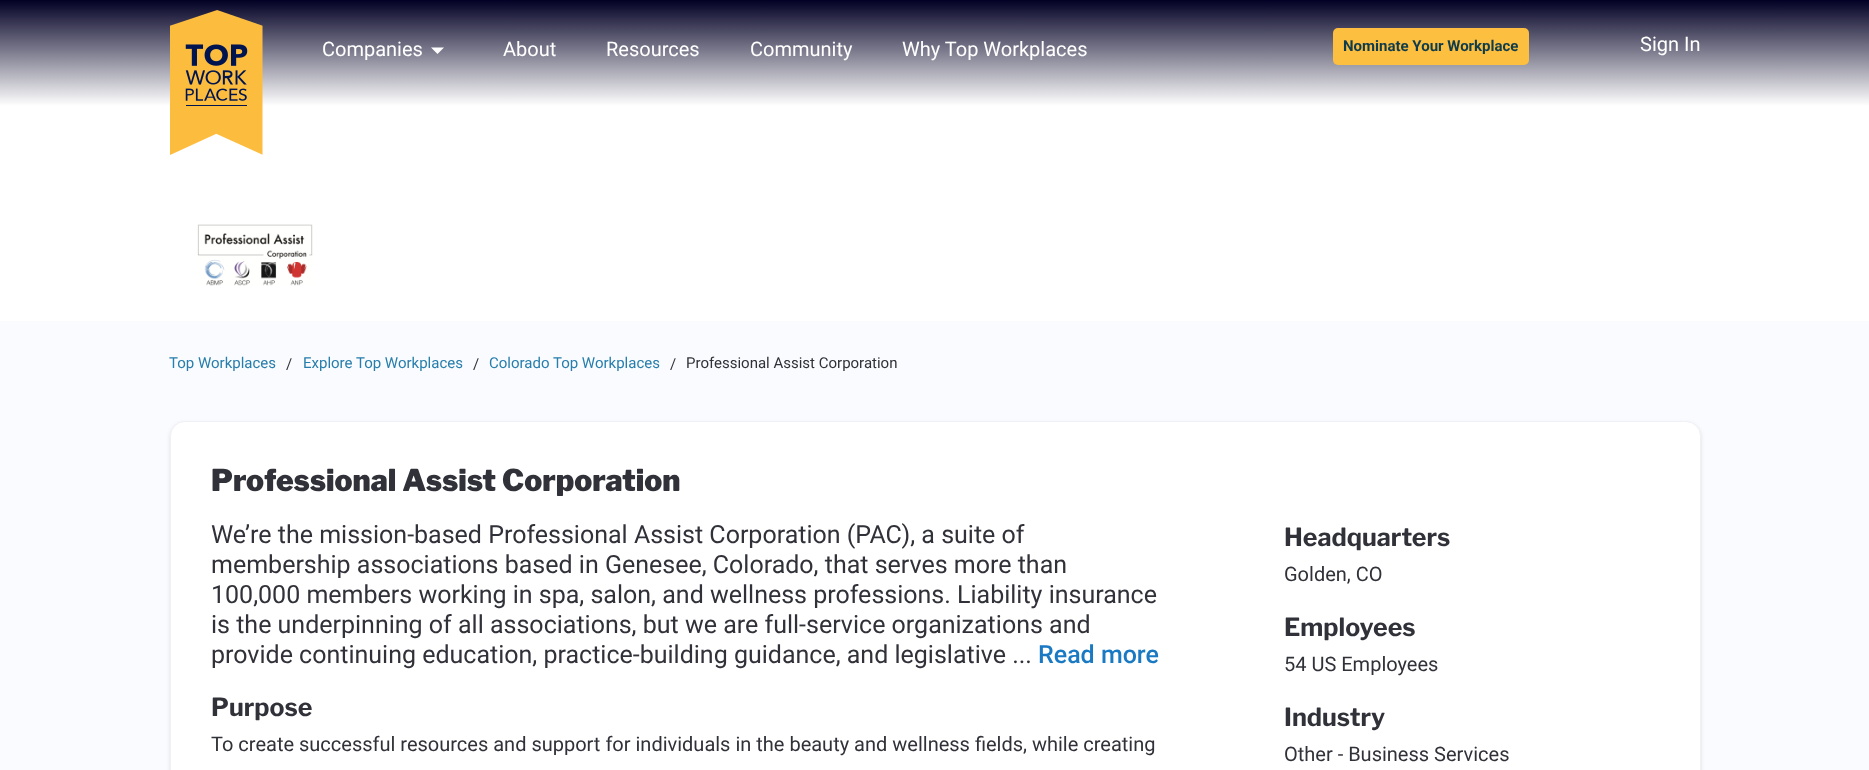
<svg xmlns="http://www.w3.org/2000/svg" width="1869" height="770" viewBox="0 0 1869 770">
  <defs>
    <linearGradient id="g1" gradientUnits="userSpaceOnUse" x1="935" y1="0" x2="935" y2="321"><stop offset="0" stop-color="#020024"/><stop offset="0.33" stop-color="#ffffff"/></linearGradient>
    <filter id="blur1" x="-50%" y="-200%" width="200%" height="500%"><feGaussianBlur stdDeviation="2"/></filter>
  </defs>
  <rect width="100%" height="100%" fill="#fafbff"/>
  <rect x="0" y="0" width="1869" height="321" fill="url(#g1)"/>
  <image x="170" y="10" width="93" height="145" href="img1.png"/>
  <text x="322" y="56" font-family="Roboto" font-size="20" fill="#ffffff">Companies</text>
  <path d="M431 47.5L437.5 54L444 47.5Z" fill="#ffffff"/>
  <text x="503" y="56" font-family="Roboto" font-size="20" fill="#ffffff">About</text>
  <text x="606" y="56" font-family="Roboto" font-size="20" fill="#ffffff">Resources</text>
  <text x="750" y="56" font-family="Roboto" font-size="20" fill="#ffffff">Community</text>
  <text x="902" y="56" font-family="Roboto" font-size="20" fill="#ffffff">Why Top Workplaces</text>
  <rect x="1333" y="28" width="196" height="37" rx="5" fill="#fdbf3f"/>
  <text x="1343" y="51" font-family="Roboto" font-size="15" font-weight="bold" fill="#0f3c4d">Nominate Your Workplace</text>
  <text x="1640" y="51" font-family="Roboto" font-size="20" fill="#ffffff">Sign In</text>
  <image x="197" y="224" width="116" height="62" href="img2.png"/>
  <text x="169" y="368" font-family="Roboto" font-size="15" fill="#277eac">Top Workplaces</text>
  <text x="286" y="369" font-family="Roboto" font-size="15" fill="#313239">/</text>
  <text x="303" y="368" font-family="Roboto" font-size="15" fill="#277eac">Explore Top Workplaces</text>
  <text x="473" y="369" font-family="Roboto" font-size="15" fill="#313239">/</text>
  <text x="489" y="368" font-family="Roboto" font-size="15" fill="#277eac">Colorado Top Workplaces</text>
  <text x="670" y="369" font-family="Roboto" font-size="15" fill="#313239">/</text>
  <text x="686" y="368" font-family="Roboto" font-size="15" fill="#313239">Professional Assist Corporation</text>
  <rect x="170" y="423" width="1531" height="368" rx="15" fill="#000000" fill-opacity="0.1" filter="url(#blur1)"/>
  <rect x="170.5" y="421.5" width="1530" height="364" rx="14.5" fill="#ffffff" stroke="#f0f1f6"/>
  <text x="211" y="491" font-family="Libre Franklin" font-size="30" font-weight="900" fill="#313239">Professional Assist Corporation</text>
  <text x="211" y="543" font-family="Roboto" font-size="25" fill="#313239">We’re the mission-based Professional Assist Corporation (PAC), a suite of</text>
  <text x="211" y="573" font-family="Roboto" font-size="25" fill="#313239">membership associations based in Genesee, Colorado, that serves more than</text>
  <text x="211" y="603" font-family="Roboto" font-size="25" fill="#313239">100,000 members working in spa, salon, and wellness professions. Liability insurance</text>
  <text x="211" y="633" font-family="Roboto" font-size="25" fill="#313239">is the underpinning of all associations, but we are full-service organizations and</text>
  <text x="211" y="663" font-family="Roboto" font-size="25" fill="#313239">provide continuing education, practice-building guidance, and legislative ...</text>
  <text x="1038" y="663" font-family="Roboto" font-size="25" font-weight="500" fill="#1979c2">Read more</text>
  <text x="211" y="716" font-family="Libre Franklin" font-size="25" font-weight="bold" fill="#313239">Purpose</text>
  <text x="211" y="751" font-family="Roboto" font-size="20" fill="#313239">To create successful resources and support for individuals in the beauty and wellness fields, while creating</text>
  <text x="1284" y="546" font-family="Libre Franklin" font-size="25" font-weight="bold" fill="#313239">Headquarters</text>
  <text x="1284" y="581" font-family="Roboto" font-size="20" fill="#313239">Golden, CO</text>
  <text x="1284" y="636" font-family="Libre Franklin" font-size="25" font-weight="bold" fill="#313239">Employees</text>
  <text x="1284" y="671" font-family="Roboto" font-size="20" fill="#313239">54 US Employees</text>
  <text x="1284" y="726" font-family="Libre Franklin" font-size="25" font-weight="bold" fill="#313239">Industry</text>
  <text x="1284" y="761" font-family="Roboto" font-size="20" fill="#313239">Other - Business Services</text>
</svg>
